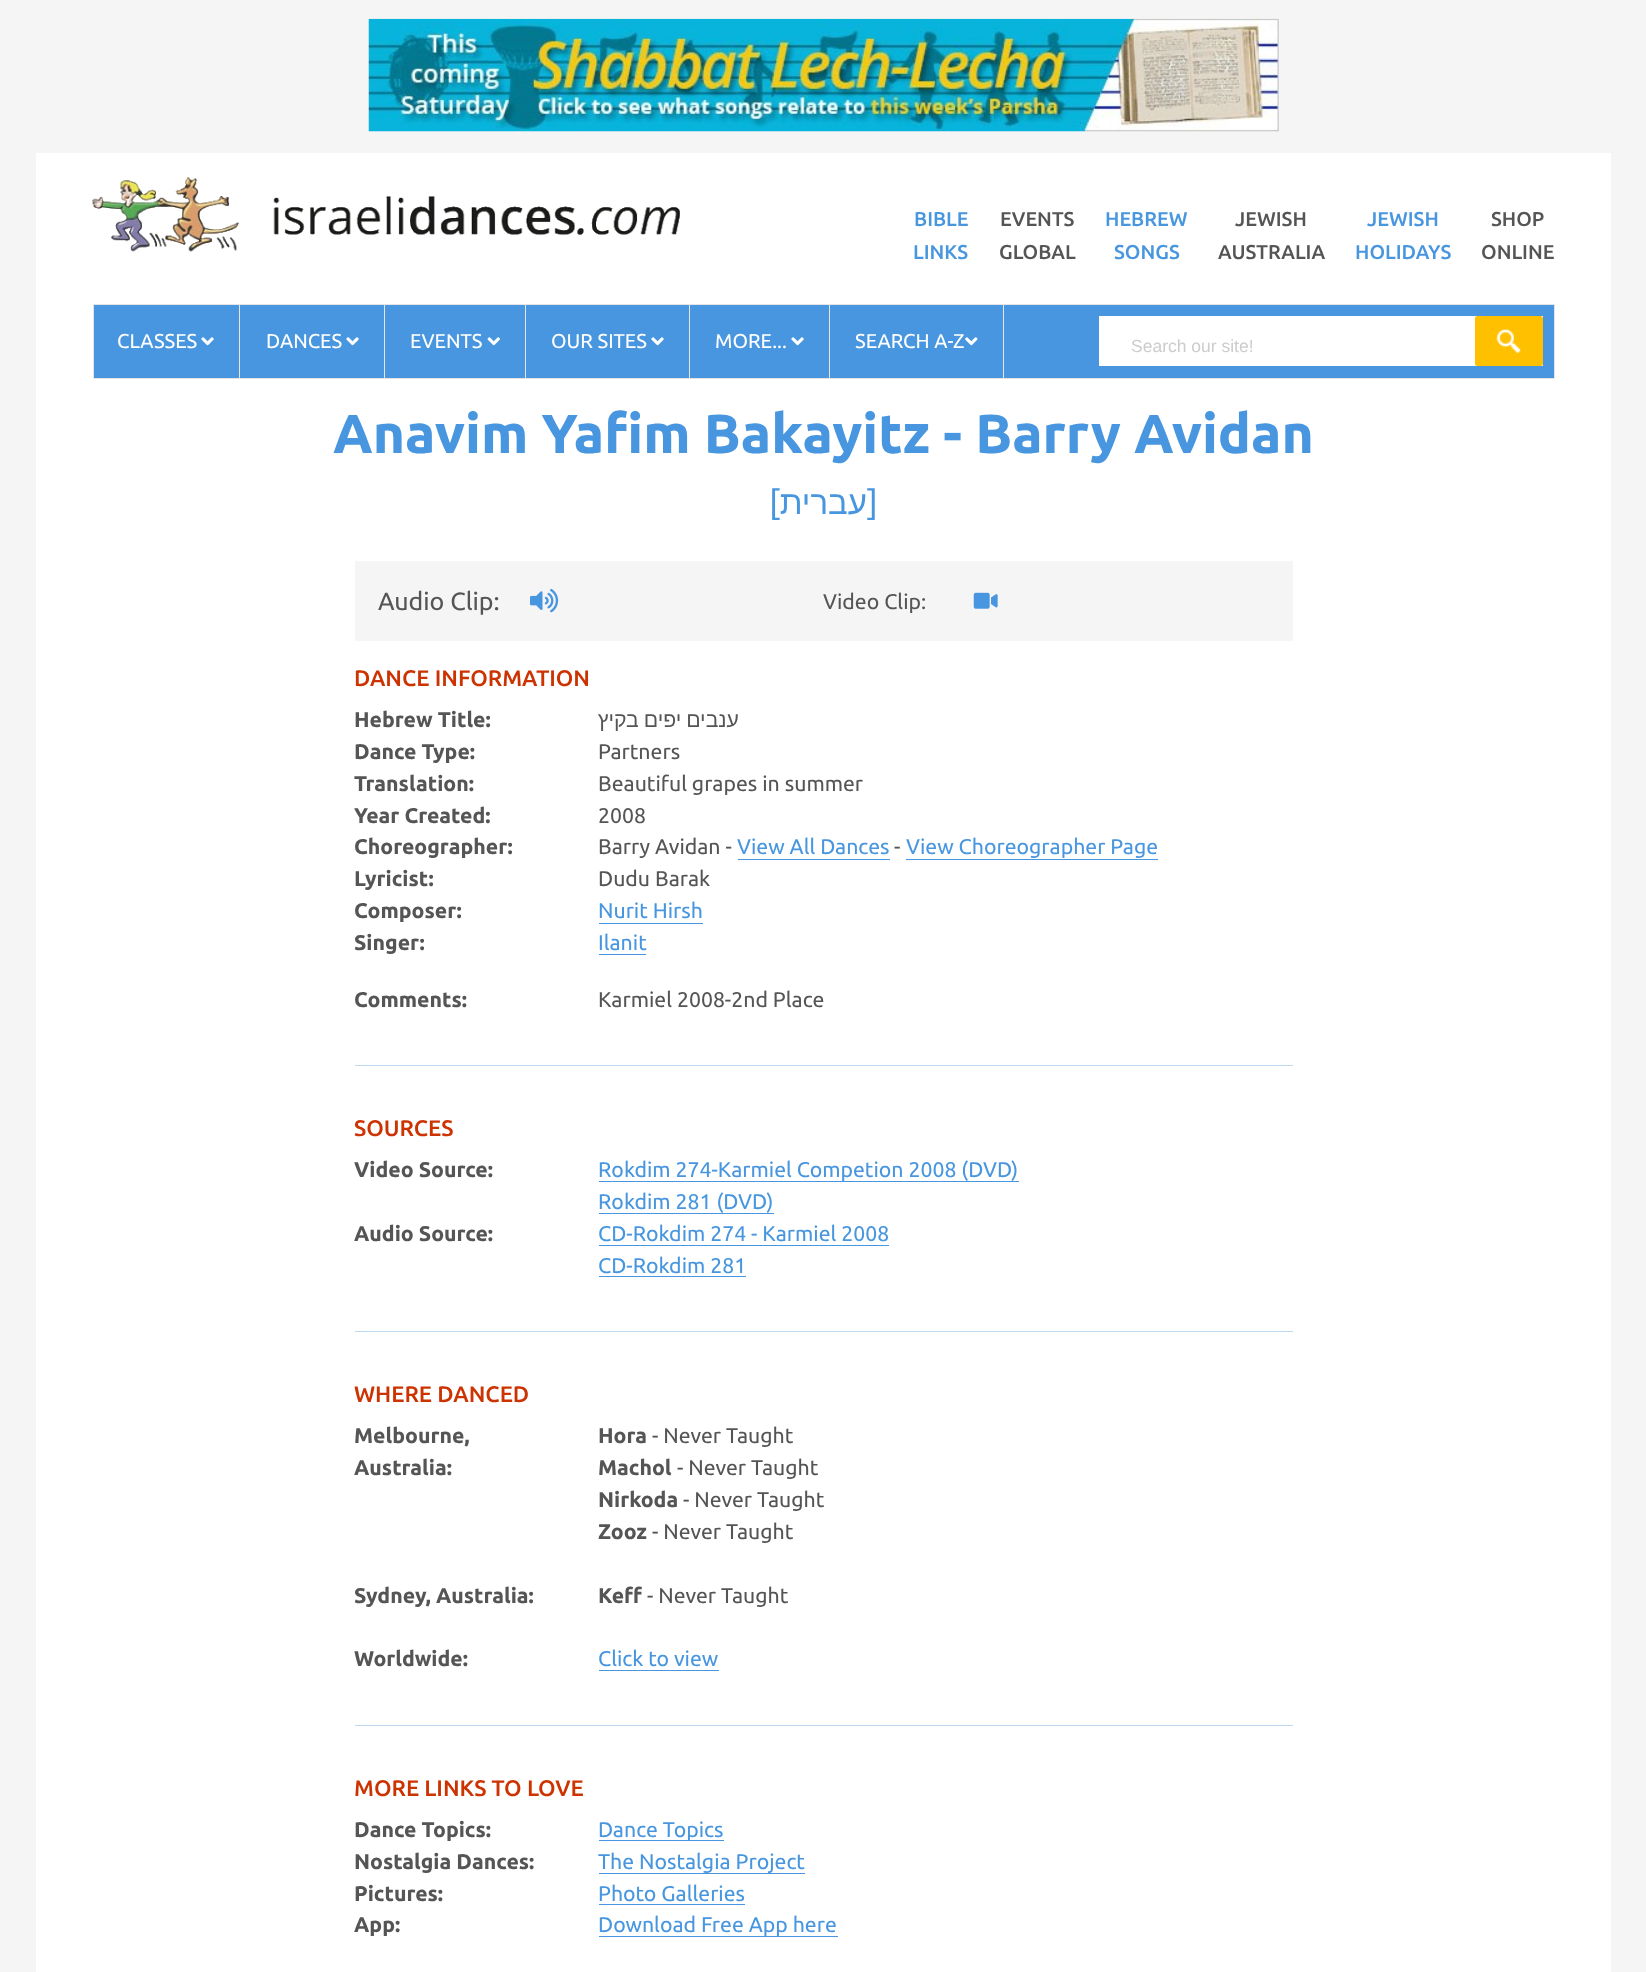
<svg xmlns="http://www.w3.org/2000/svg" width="1646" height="1972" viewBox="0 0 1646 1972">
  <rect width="100%" height="100%" fill="#f5f5f5"/>
  <image x="368" y="18" width="911" height="114" href="img1.png"/>
  <rect x="36" y="153" width="1575" height="1819" fill="#ffffff"/>
  <image x="92" y="177" width="588" height="75" href="img2.png"/>
  <text x="914" y="226" font-family="Ubuntu" font-size="20" font-weight="500" fill="#4896df">BIBLE</text>
  <text x="913" y="259" font-family="Ubuntu" font-size="20" font-weight="500" fill="#4896df">LINKS</text>
  <text x="1000" y="226" font-family="Ubuntu" font-size="20" font-weight="500" fill="#555555">EVENTS</text>
  <text x="999" y="259" font-family="Ubuntu" font-size="20" font-weight="500" fill="#555555">GLOBAL</text>
  <text x="1105" y="226" font-family="Ubuntu" font-size="20" font-weight="500" fill="#4896df">HEBREW</text>
  <text x="1114" y="259" font-family="Ubuntu" font-size="20" font-weight="500" fill="#4896df">SONGS</text>
  <text x="1235" y="226" font-family="Ubuntu" font-size="20" font-weight="500" fill="#555555">JEWISH</text>
  <text x="1218" y="259" font-family="Ubuntu" font-size="20" font-weight="500" fill="#555555">AUSTRALIA</text>
  <text x="1367" y="226" font-family="Ubuntu" font-size="20" font-weight="500" fill="#4896df">JEWISH</text>
  <text x="1355" y="259" font-family="Ubuntu" font-size="20" font-weight="500" fill="#4896df">HOLIDAYS</text>
  <text x="1491" y="226" font-family="Ubuntu" font-size="20" font-weight="500" fill="#555555">SHOP</text>
  <text x="1481" y="259" font-family="Ubuntu" font-size="20" font-weight="500" fill="#555555">ONLINE</text>
  <rect x="93.5" y="304.5" width="1461" height="74" fill="#4896df" stroke="#e5e5e5"/>
  <rect x="239" y="304" width="1" height="75" fill="#e5e5e5"/>
  <text x="117" y="348" font-family="Ubuntu" font-size="20" fill="#ffffff">CLASSES</text>
  <image x="201" y="337" width="13" height="9" href="img3.png"/>
  <rect x="384" y="304" width="1" height="75" fill="#e5e5e5"/>
  <text x="266" y="348" font-family="Ubuntu" font-size="20" fill="#ffffff">DANCES</text>
  <image x="346" y="337" width="13" height="9" href="img3.png"/>
  <rect x="525" y="304" width="1" height="75" fill="#e5e5e5"/>
  <text x="410" y="348" font-family="Ubuntu" font-size="20" fill="#ffffff">EVENTS</text>
  <image x="487" y="337" width="13" height="9" href="img4.png"/>
  <rect x="689" y="304" width="1" height="75" fill="#e5e5e5"/>
  <text x="551" y="348" font-family="Ubuntu" font-size="20" fill="#ffffff">OUR SITES</text>
  <image x="651" y="337" width="13" height="9" href="img3.png"/>
  <rect x="829" y="304" width="1" height="75" fill="#e5e5e5"/>
  <text x="715" y="348" font-family="Ubuntu" font-size="20" fill="#ffffff">MORE...</text>
  <image x="791" y="337" width="13" height="9" href="img3.png"/>
  <rect x="1003" y="304" width="1" height="75" fill="#e5e5e5"/>
  <text x="855" y="348" font-family="Ubuntu" font-size="20" fill="#ffffff">SEARCH A-Z</text>
  <image x="965" y="337" width="13" height="9" href="img5.png"/>
  <rect x="1099" y="316" width="444" height="50" fill="#ffffff"/>
  <text x="1131" y="352" font-family="Liberation Sans" font-size="17.5" fill="#cccccc">Search our site!</text>
  <rect x="1475" y="316" width="68" height="50" rx="2.5" fill="#ffc000"/>
  <image x="1496" y="328" width="26" height="26" href="img6.png"/>
  <text x="333" y="453" font-family="Ubuntu" font-size="55" font-weight="bold" fill="#4896df">Anavim Yafim Bakayitz - Barry Avidan</text>
  <text x="769" y="514" font-family="Ubuntu" font-size="33" fill="#4896df">[</text>
  <text x="867" y="514" font-family="Liberation Sans" font-size="33" direction="rtl" fill="#4896df">עברית</text>
  <text x="867" y="514" font-family="Ubuntu" font-size="33" fill="#4896df">]</text>
  <rect x="355" y="561" width="938" height="80" fill="#f5f5f5"/>
  <text x="378" y="610" font-family="Ubuntu" font-size="25" fill="#555555">Audio Clip:</text>
  <image x="530" y="588" width="29" height="25" href="img7.png"/>
  <text x="823" y="609" font-family="Ubuntu" font-size="21.25" fill="#555555">Video Clip:</text>
  <image x="973" y="592" width="25" height="17" href="img8.png"/>
  <text x="354" y="686" font-family="Ubuntu" font-size="22.5" font-weight="500" fill="#cc3300">DANCE INFORMATION</text>
  <text x="354" y="727" font-family="Ubuntu" font-size="21.25" font-weight="bold" fill="#555555">Hebrew Title:</text>
  <text x="739" y="727" word-spacing="-1" font-family="Liberation Sans" font-size="21.25" direction="rtl" fill="#555555">ענבים יפים בקיץ</text>
  <text x="354" y="759" font-family="Ubuntu" font-size="21.25" font-weight="bold" fill="#555555">Dance Type:</text>
  <text x="598" y="759" font-family="Ubuntu" font-size="21.25" fill="#555555">Partners</text>
  <text x="354" y="791" font-family="Ubuntu" font-size="21.25" font-weight="bold" fill="#555555">Translation:</text>
  <text x="598" y="791" font-family="Ubuntu" font-size="21.25" fill="#555555">Beautiful grapes in summer</text>
  <text x="354" y="823" font-family="Ubuntu" font-size="21.25" font-weight="bold" fill="#555555">Year Created:</text>
  <text x="598" y="823" font-family="Ubuntu" font-size="21.25" fill="#555555">2008</text>
  <text x="354" y="854" font-family="Ubuntu" font-size="21.25" font-weight="bold" fill="#555555">Choreographer:</text>
  <text x="598" y="854" font-family="Ubuntu" font-size="21.25" fill="#555555">Barry Avidan -</text>
  <text x="737" y="854" font-family="Ubuntu" font-size="21.25" fill="#4896df">View All Dances</text>
  <rect x="738" y="859" width="152" height="1" fill="#4896df"/>
  <text x="894" y="854" font-family="Ubuntu" font-size="21.25" fill="#555555">-</text>
  <text x="906" y="854" font-family="Ubuntu" font-size="21.25" fill="#4896df">View Choreographer Page</text>
  <rect x="906" y="859" width="252" height="1" fill="#4896df"/>
  <text x="354" y="886" font-family="Ubuntu" font-size="21.25" font-weight="bold" fill="#555555">Lyricist:</text>
  <text x="598" y="886" font-family="Ubuntu" font-size="21.25" fill="#555555">Dudu Barak</text>
  <text x="354" y="918" font-family="Ubuntu" font-size="21.25" font-weight="bold" fill="#555555">Composer:</text>
  <text x="598" y="918" font-family="Ubuntu" font-size="21.25" fill="#4896df">Nurit Hirsh</text>
  <rect x="599" y="923" width="104" height="1" fill="#4896df"/>
  <text x="354" y="950" font-family="Ubuntu" font-size="21.25" font-weight="bold" fill="#555555">Singer:</text>
  <text x="598" y="950" font-family="Ubuntu" font-size="21.25" fill="#4896df">Ilanit</text>
  <rect x="599" y="954" width="47" height="1" fill="#4896df"/>
  <text x="354" y="1007" font-family="Ubuntu" font-size="21.25" font-weight="bold" fill="#555555">Comments:</text>
  <text x="598" y="1007" font-family="Ubuntu" font-size="21.25" fill="#555555">Karmiel 2008-2nd Place</text>
  <rect x="355" y="1065" width="938" height="1" fill="#bfd9f3"/>
  <text x="354" y="1136" font-family="Ubuntu" font-size="22.5" font-weight="500" fill="#cc3300">SOURCES</text>
  <text x="354" y="1177" font-family="Ubuntu" font-size="21.25" font-weight="bold" fill="#555555">Video Source:</text>
  <text x="598" y="1177" font-family="Ubuntu" font-size="21.25" fill="#4896df">Rokdim 274-Karmiel Competion 2008 (DVD)</text>
  <rect x="599" y="1181" width="420" height="1" fill="#4896df"/>
  <text x="598" y="1209" font-family="Ubuntu" font-size="21.25" fill="#4896df">Rokdim 281 (DVD)</text>
  <rect x="599" y="1213" width="175" height="1" fill="#4896df"/>
  <text x="354" y="1241" font-family="Ubuntu" font-size="21.25" font-weight="bold" fill="#555555">Audio Source:</text>
  <text x="598" y="1241" font-family="Ubuntu" font-size="21.25" fill="#4896df">CD-Rokdim 274 - Karmiel 2008</text>
  <rect x="599" y="1245" width="290" height="1" fill="#4896df"/>
  <text x="598" y="1273" font-family="Ubuntu" font-size="21.25" fill="#4896df">CD-Rokdim 281</text>
  <rect x="599" y="1276" width="147" height="1" fill="#4896df"/>
  <rect x="355" y="1331" width="938" height="1" fill="#bfd9f3"/>
  <text x="354" y="1402" font-family="Ubuntu" font-size="22.5" font-weight="500" fill="#cc3300">WHERE DANCED</text>
  <text x="354" y="1443" font-family="Ubuntu" font-size="21.25" font-weight="bold" fill="#555555">Melbourne,</text>
  <text x="354" y="1475" font-family="Ubuntu" font-size="21.25" font-weight="bold" fill="#555555">Australia:</text>
  <text x="598" y="1443" font-family="Ubuntu" font-size="21.25" font-weight="bold" fill="#555555">Hora</text>
  <text x="652" y="1443" font-family="Ubuntu" font-size="21.25" fill="#555555">- Never Taught</text>
  <text x="598" y="1475" font-family="Ubuntu" font-size="21.25" font-weight="bold" fill="#555555">Machol</text>
  <text x="677" y="1475" font-family="Ubuntu" font-size="21.25" fill="#555555">- Never Taught</text>
  <text x="598" y="1507" font-family="Ubuntu" font-size="21.25" font-weight="bold" fill="#555555">Nirkoda</text>
  <text x="683" y="1507" font-family="Ubuntu" font-size="21.25" fill="#555555">- Never Taught</text>
  <text x="598" y="1539" font-family="Ubuntu" font-size="21.25" font-weight="bold" fill="#555555">Zooz</text>
  <text x="652" y="1539" font-family="Ubuntu" font-size="21.25" fill="#555555">- Never Taught</text>
  <text x="354" y="1603" font-family="Ubuntu" font-size="21.25" font-weight="bold" fill="#555555">Sydney, Australia:</text>
  <text x="598" y="1603" font-family="Ubuntu" font-size="21.25" font-weight="bold" fill="#555555">Keff</text>
  <text x="647" y="1603" font-family="Ubuntu" font-size="21.25" fill="#555555">- Never Taught</text>
  <text x="354" y="1666" font-family="Ubuntu" font-size="21.25" font-weight="bold" fill="#555555">Worldwide:</text>
  <text x="598" y="1666" font-family="Ubuntu" font-size="21.25" fill="#4896df">Click to view</text>
  <rect x="599" y="1670" width="120" height="1" fill="#4896df"/>
  <rect x="355" y="1725" width="938" height="1" fill="#bfd9f3"/>
  <text x="354" y="1796" font-family="Ubuntu" font-size="22.5" font-weight="500" fill="#cc3300">MORE LINKS TO LOVE</text>
  <text x="354" y="1837" font-family="Ubuntu" font-size="21.25" font-weight="bold" fill="#555555">Dance Topics:</text>
  <rect x="599" y="1840" width="125" height="1" fill="#4896df"/>
  <text x="598" y="1837" font-family="Ubuntu" font-size="21.25" fill="#4896df">Dance Topics</text>
  <text x="354" y="1869" font-family="Ubuntu" font-size="21.25" font-weight="bold" fill="#555555">Nostalgia Dances:</text>
  <text x="598" y="1869" font-family="Ubuntu" font-size="21.25" fill="#4896df">The Nostalgia Project</text>
  <rect x="599" y="1873" width="206" height="1" fill="#4896df"/>
  <text x="354" y="1901" font-family="Ubuntu" font-size="21.25" font-weight="bold" fill="#555555">Pictures:</text>
  <text x="598" y="1901" font-family="Ubuntu" font-size="21.25" fill="#4896df">Photo Galleries</text>
  <rect x="599" y="1904" width="146" height="1" fill="#4896df"/>
  <text x="354" y="1932" font-family="Ubuntu" font-size="21.25" font-weight="bold" fill="#555555">App:</text>
  <text x="598" y="1932" font-family="Ubuntu" font-size="21.25" fill="#4896df">Download Free App here</text>
  <rect x="599" y="1936" width="239" height="1" fill="#4896df"/>
</svg>
